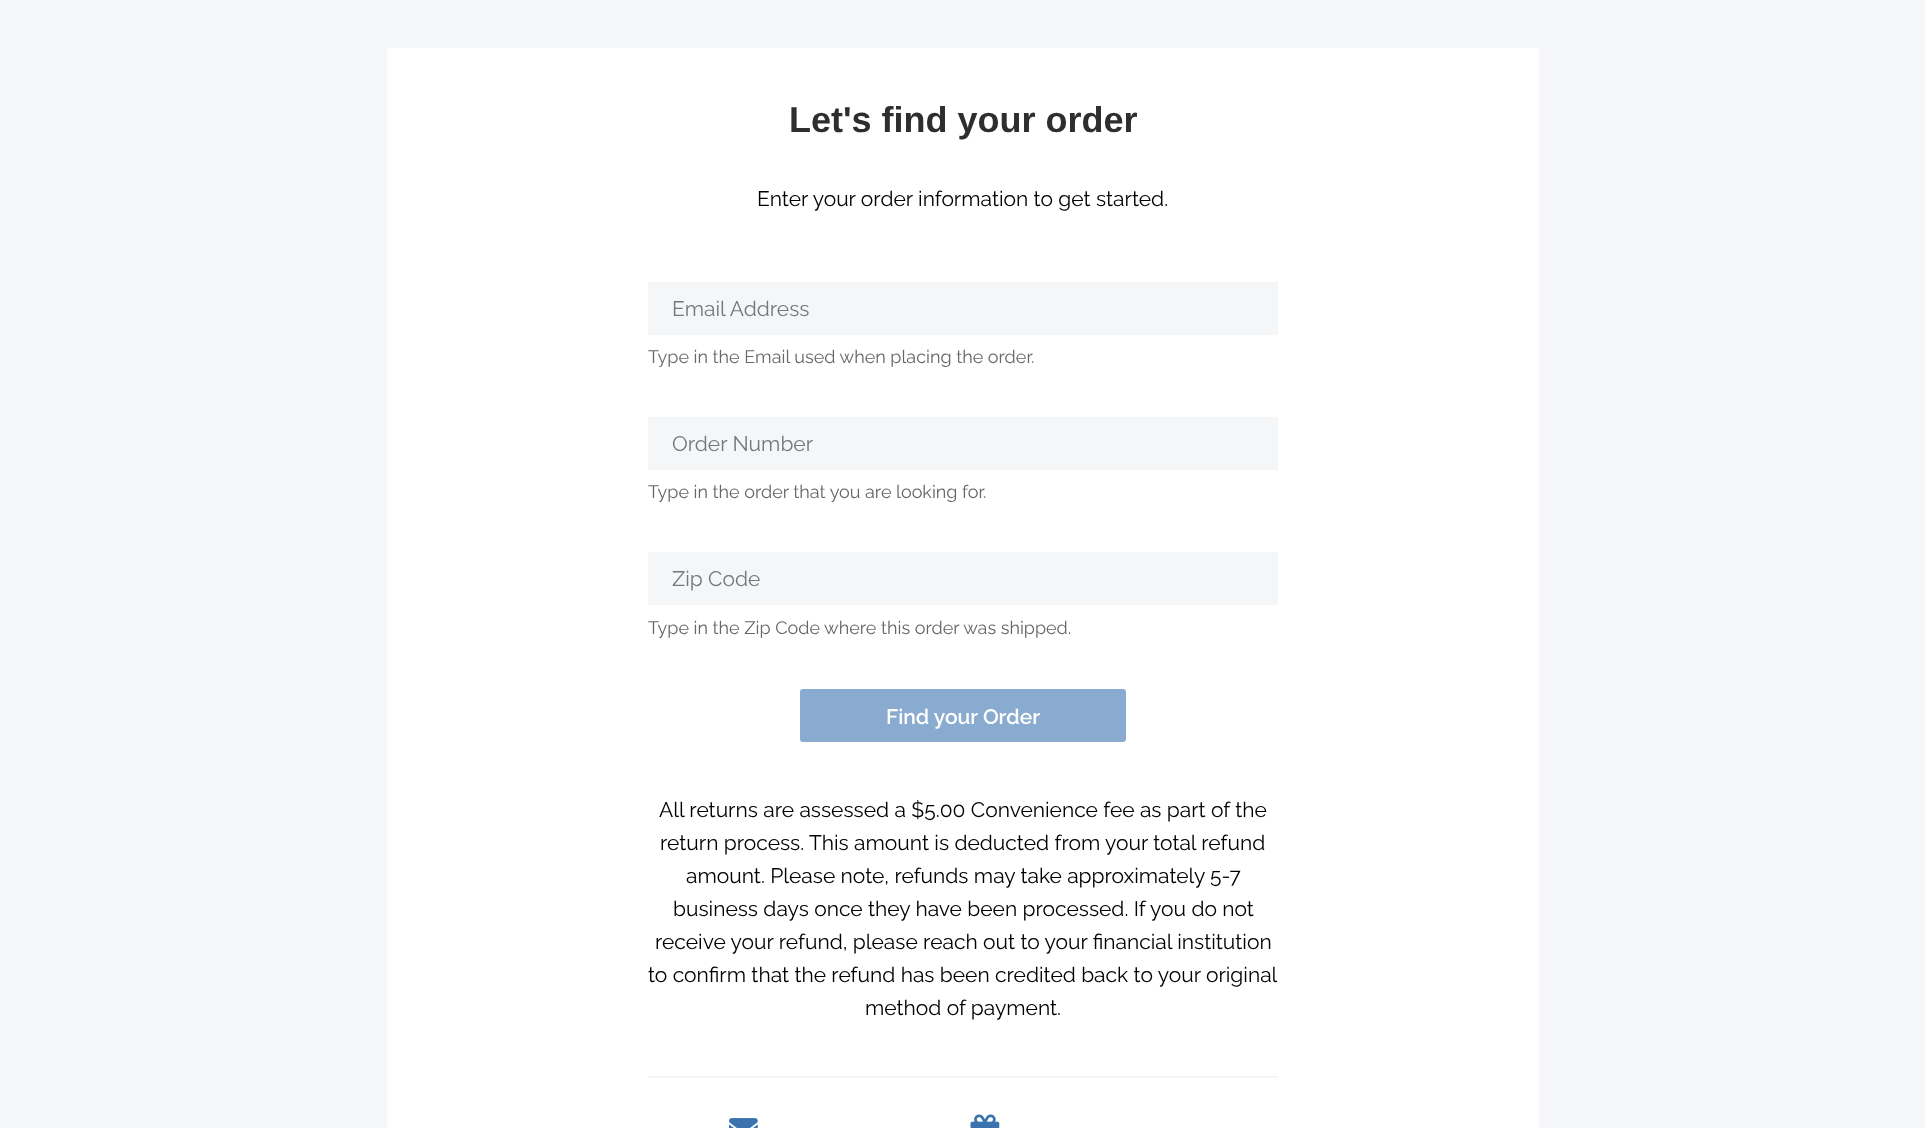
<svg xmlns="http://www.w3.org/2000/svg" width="1925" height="1128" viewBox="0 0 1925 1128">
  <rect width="100%" height="100%" fill="#f4f6f8"/>
  <rect x="387" y="48" width="1152" height="1080" fill="#ffffff"/>
  <text x="789" y="132" font-family="Liberation Sans" font-size="36" font-weight="bold" fill="#2e2e2e">Let's find your order</text>
  <text x="757" y="206" font-family="Raleway" font-size="21" fill="#000000">Enter your order information to get started.</text>
  <rect x="648" y="282" width="630" height="53" fill="#f5f6f8"/>
  <text x="672" y="316" font-family="Raleway" font-size="21" fill="#767778">Email Address</text>
  <text x="648" y="363" font-family="Raleway" font-size="18" fill="#666666">Type in the Email used when placing the order.</text>
  <rect x="648" y="417" width="630" height="53" fill="#f5f6f8"/>
  <text x="672" y="451" font-family="Raleway" font-size="21" fill="#767778">Order Number</text>
  <text x="648" y="498" font-family="Raleway" font-size="18" fill="#666666">Type in the order that you are looking for.</text>
  <rect x="648" y="552" width="630" height="53" fill="#f5f6f8"/>
  <text x="672" y="586" font-family="Raleway" font-size="21" fill="#767778">Zip Code</text>
  <text x="648" y="634" font-family="Raleway" font-size="18" fill="#666666">Type in the Zip Code where this order was shipped.</text>
  <rect x="799" y="688" width="328" height="55" rx="4" fill="#89abcf" stroke="#ffffff" stroke-width="2"/>
  <text x="886" y="724" font-family="Raleway" font-size="21" font-weight="600" fill="#ffffff">Find your Order</text>
  <rect x="648" y="1076" width="630" height="2" fill="#f5f6f8"/>
  <text x="659" y="817" font-family="Raleway" font-size="21" fill="#000000">All returns are assessed a $5.00 Convenience fee as part of the</text>
  <text x="660" y="850" font-family="Raleway" font-size="21" fill="#000000">return process. This amount is deducted from your total refund</text>
  <text x="686" y="883" font-family="Raleway" font-size="21" fill="#000000">amount. Please note, refunds may take approximately 5-7</text>
  <text x="673" y="916" font-family="Raleway" font-size="21" fill="#000000">business days once they have been processed. If you do not</text>
  <text x="655" y="949" font-family="Raleway" font-size="21" fill="#000000">receive your refund, please reach out to your financial institution</text>
  <text x="648" y="982" font-family="Raleway" font-size="21" fill="#000000">to confirm that the refund has been credited back to your original</text>
  <text x="865" y="1015" font-family="Raleway" font-size="21" fill="#000000">method of payment.</text>
  <image x="729" y="1118" width="29" height="10" href="img1.png"/>
  <image x="970" y="1114" width="30" height="14" href="img2.png"/>
</svg>
